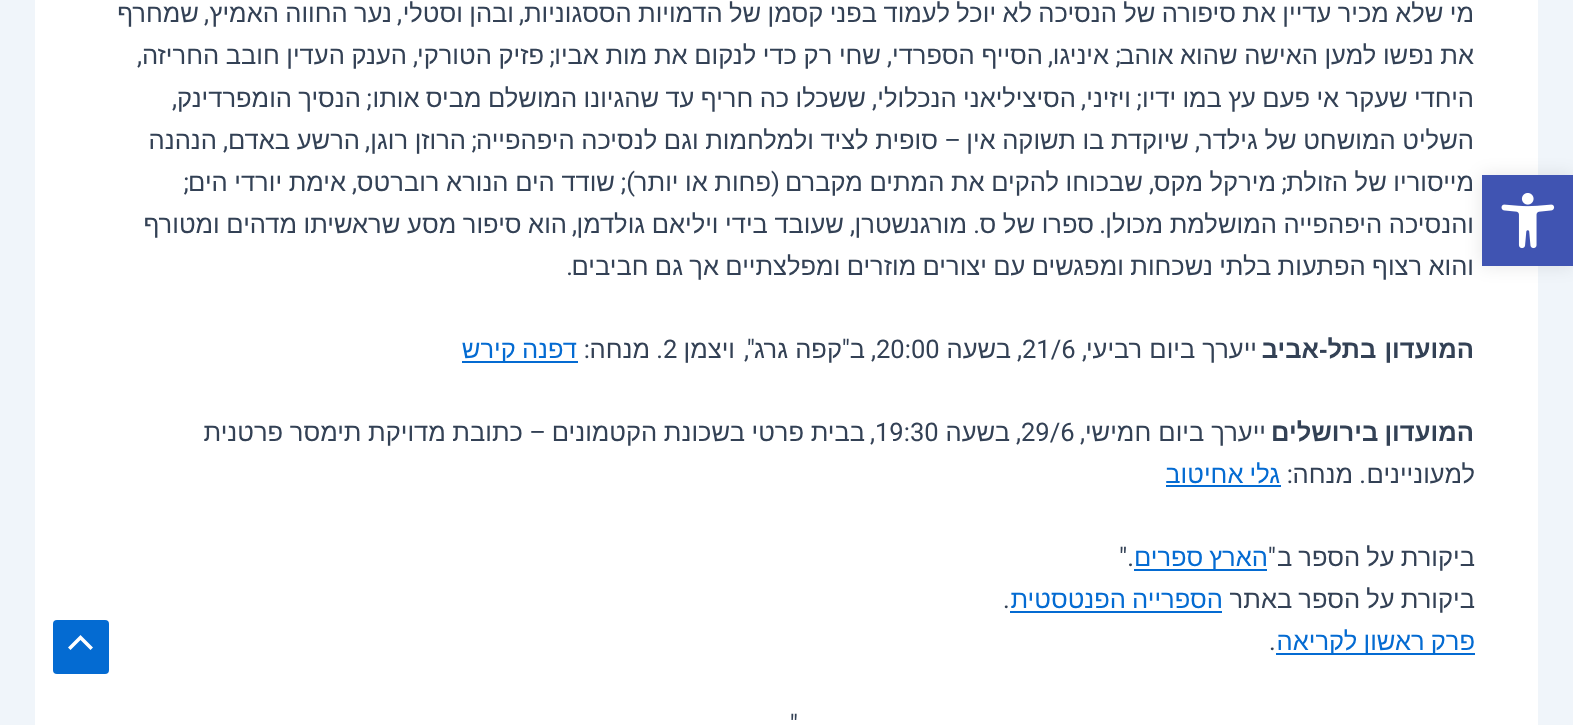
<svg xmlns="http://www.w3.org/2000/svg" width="1573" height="725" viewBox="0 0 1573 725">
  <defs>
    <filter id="blur1" x="-50%" y="-200%" width="200%" height="500%"><feGaussianBlur stdDeviation="9"/></filter>
  </defs>
  <rect width="100%" height="100%" fill="#f0f5fa"/>
  <rect x="35" y="0" width="1503" height="725" fill="#ffffff"/>
  <rect x="1482" y="175" width="91" height="91" fill="#000000" fill-opacity="0.1" filter="url(#blur1)"/>
  <text x="1474" y="275" word-spacing="-0.75" font-family="Liberation Sans" font-size="25.55" direction="rtl" fill="#334155">והוא רצוף הפתעות בלתי נשכחות ומפגשים עם יצורים מוזרים ומפלצתיים אך גם חביבים</text>
  <rect x="1482" y="175" width="91" height="91" fill="#4054b2"/>
  <image x="1501" y="193" width="54" height="56" href="img1.png"/>
  <text x="1474" y="22" word-spacing="-0.75" font-family="Liberation Sans" font-size="25.55" direction="rtl" fill="#334155">מי שלא מכיר עדיין את סיפורה של הנסיכה לא יוכל לעמוד בפני קסמן של הדמויות הססגוניות</text>
  <text x="524" y="22" font-family="Roboto" font-size="25.55" direction="rtl" fill="#334155">,</text>
  <text x="514" y="22" word-spacing="-0.75" font-family="Liberation Sans" font-size="25.55" direction="rtl" fill="#334155">ובהן וסטלי</text>
  <text x="402" y="22" font-family="Roboto" font-size="25.55" direction="rtl" fill="#334155">,</text>
  <text x="392" y="22" word-spacing="-0.75" font-family="Liberation Sans" font-size="25.55" direction="rtl" fill="#334155">נער החווה האמיץ</text>
  <text x="209" y="22" font-family="Roboto" font-size="25.55" direction="rtl" fill="#334155">,</text>
  <text x="199" y="22" font-family="Liberation Sans" font-size="25.55" direction="rtl" fill="#334155">שמחרף</text>
  <text x="1474" y="64" word-spacing="-0.5" font-family="Liberation Sans" font-size="25.55" direction="rtl" fill="#334155">את נפשו למען האישה שהוא אוהב</text>
  <text x="1121" y="64" font-family="Roboto" font-size="25.55" direction="rtl" fill="#334155">;</text>
  <text x="1109" y="64" font-family="Liberation Sans" font-size="25.55" direction="rtl" fill="#334155">איניגו</text>
  <text x="1053" y="64" font-family="Roboto" font-size="25.55" direction="rtl" fill="#334155">,</text>
  <text x="1043" y="64" word-spacing="-0.5" font-family="Liberation Sans" font-size="25.55" direction="rtl" fill="#334155">הסייף הספרדי</text>
  <text x="892" y="64" font-family="Roboto" font-size="25.55" direction="rtl" fill="#334155">,</text>
  <text x="881" y="64" word-spacing="-0.5" font-family="Liberation Sans" font-size="25.55" direction="rtl" fill="#334155">שחי רק כדי לנקום את מות אביו</text>
  <text x="555" y="64" font-family="Roboto" font-size="25.55" direction="rtl" fill="#334155">;</text>
  <text x="544" y="64" word-spacing="-0.5" font-family="Liberation Sans" font-size="25.55" direction="rtl" fill="#334155">פזיק הטורקי</text>
  <text x="418" y="64" font-family="Roboto" font-size="25.55" direction="rtl" fill="#334155">,</text>
  <text x="407" y="64" word-spacing="-0.5" font-family="Liberation Sans" font-size="25.55" direction="rtl" fill="#334155">הענק העדין חובב החריזה</text>
  <text x="142" y="64" font-family="Roboto" font-size="25.55" direction="rtl" fill="#334155">,</text>
  <text x="1474" y="107" word-spacing="-0.75" font-family="Liberation Sans" font-size="25.55" direction="rtl" fill="#334155">היחדי שעקר אי פעם עץ במו ידיו</text>
  <text x="1142" y="107" font-family="Roboto" font-size="25.55" direction="rtl" fill="#334155">;</text>
  <text x="1131" y="107" font-family="Liberation Sans" font-size="25.55" direction="rtl" fill="#334155">ויזיני</text>
  <text x="1086" y="107" font-family="Roboto" font-size="25.55" direction="rtl" fill="#334155">,</text>
  <text x="1076" y="107" word-spacing="-0.75" font-family="Liberation Sans" font-size="25.55" direction="rtl" fill="#334155">הסיציליאני הנכלולי</text>
  <text x="877" y="107" font-family="Roboto" font-size="25.55" direction="rtl" fill="#334155">,</text>
  <text x="866" y="107" word-spacing="-0.75" font-family="Liberation Sans" font-size="25.55" direction="rtl" fill="#334155">ששכלו כה חריף עד שהגיונו המושלם מביס אותו</text>
  <text x="372" y="107" font-family="Roboto" font-size="25.55" direction="rtl" fill="#334155">;</text>
  <text x="361" y="107" word-spacing="-0.75" font-family="Liberation Sans" font-size="25.55" direction="rtl" fill="#334155">הנסיך הומפרדינק</text>
  <text x="177" y="107" font-family="Roboto" font-size="25.55" direction="rtl" fill="#334155">,</text>
  <text x="1474" y="149" word-spacing="-0.5" font-family="Liberation Sans" font-size="25.55" direction="rtl" fill="#334155">השליט המושחט של גילדר</text>
  <text x="1189" y="149" word-spacing="-0.5" font-family="Liberation Sans" font-size="25.55" direction="rtl" fill="#334155">שיוקדת בו תשוקה אין</text>
  <text x="961" y="149" font-family="Roboto" font-size="25.55" direction="rtl" fill="#334155">–</text>
  <text x="938" y="149" word-spacing="-0.5" font-family="Liberation Sans" font-size="25.55" direction="rtl" fill="#334155">סופית לציד ולמלחמות וגם לנסיכה היפהפייה</text>
  <text x="477" y="149" font-family="Roboto" font-size="25.55" direction="rtl" fill="#334155">;</text>
  <text x="466" y="149" word-spacing="-0.5" font-family="Liberation Sans" font-size="25.55" direction="rtl" fill="#334155">הרוזן רוגן</text>
  <text x="360" y="149" word-spacing="-0.5" font-family="Liberation Sans" font-size="25.55" direction="rtl" fill="#334155">הרשע באדם</text>
  <text x="217" y="149" font-family="Liberation Sans" font-size="25.55" direction="rtl" fill="#334155">הנהנה</text>
  <text x="1200" y="149" font-family="Roboto" font-size="25.55" direction="rtl" fill="#334155">,</text>
  <text x="370" y="149" font-family="Roboto" font-size="25.55" direction="rtl" fill="#334155">,</text>
  <text x="228" y="149" font-family="Roboto" font-size="25.55" direction="rtl" fill="#334155">,</text>
  <text x="1474" y="191" word-spacing="-0.5" font-family="Liberation Sans" font-size="25.55" direction="rtl" fill="#334155">מייסוריו של הזולת</text>
  <text x="1287" y="191" font-family="Roboto" font-size="25.55" direction="rtl" fill="#334155">;</text>
  <text x="1276" y="191" word-spacing="-0.5" font-family="Liberation Sans" font-size="25.55" direction="rtl" fill="#334155">מירקל מקס</text>
  <text x="1154" y="191" font-family="Roboto" font-size="25.55" direction="rtl" fill="#334155">,</text>
  <text x="1143" y="191" word-spacing="-0.5" font-family="Liberation Sans" font-size="25.55" direction="rtl" fill="#334155">שבכוחו להקים את המתים מקברם</text>
  <text x="780" y="191" font-family="Roboto" font-size="25.55" direction="rtl" fill="#334155">(</text>
  <text x="771" y="191" word-spacing="-0.5" font-family="Liberation Sans" font-size="25.55" direction="rtl" fill="#334155">פחות או יותר</text>
  <text x="635" y="191" font-family="Roboto" font-size="25.55" direction="rtl" fill="#334155">);</text>
  <text x="615" y="191" word-spacing="-0.5" font-family="Liberation Sans" font-size="25.55" direction="rtl" fill="#334155">שודד הים הנורא רוברטס</text>
  <text x="357" y="191" font-family="Roboto" font-size="25.55" direction="rtl" fill="#334155">,</text>
  <text x="346" y="191" word-spacing="-0.5" font-family="Liberation Sans" font-size="25.55" direction="rtl" fill="#334155">אימת יורדי הים</text>
  <text x="189" y="191" font-family="Roboto" font-size="25.55" direction="rtl" fill="#334155">;</text>
  <text x="1474" y="233" word-spacing="-0.5" font-family="Liberation Sans" font-size="25.55" direction="rtl" fill="#334155">והנסיכה היפהפייה המושלמת מכולן</text>
  <text x="1106" y="233" font-family="Roboto" font-size="25.55" direction="rtl" fill="#334155">.</text>
  <text x="1094" y="233" word-spacing="-0.5" font-family="Liberation Sans" font-size="25.55" direction="rtl" fill="#334155">ספרו של ס</text>
  <text x="980" y="233" font-family="Roboto" font-size="25.55" direction="rtl" fill="#334155">.</text>
  <text x="967" y="233" font-family="Liberation Sans" font-size="25.55" direction="rtl" fill="#334155">מורגנשטרן</text>
  <text x="855" y="233" font-family="Roboto" font-size="25.55" direction="rtl" fill="#334155">,</text>
  <text x="844" y="233" word-spacing="-0.5" font-family="Liberation Sans" font-size="25.55" direction="rtl" fill="#334155">שעובד בידי ויליאם גולדמן</text>
  <text x="577" y="233" font-family="Roboto" font-size="25.55" direction="rtl" fill="#334155">,</text>
  <text x="567" y="233" word-spacing="-0.5" font-family="Liberation Sans" font-size="25.55" direction="rtl" fill="#334155">הוא סיפור מסע שראשיתו מדהים ומטורף</text>
  <text x="573" y="275" font-family="Roboto" font-size="25.55" direction="rtl" fill="#334155">.</text>
  <text x="1474" y="358" word-spacing="1" font-family="Liberation Sans" font-size="25.55" font-weight="bold" direction="rtl" fill="#334155">המועדון בתל-אביב</text>
  <text x="1257" y="358" font-family="Liberation Sans" font-size="25.55" direction="rtl" fill="#334155">ייערך ביום רביעי</text>
  <text x="1087" y="358" font-family="Roboto" font-size="25.55" direction="rtl" fill="#334155">,</text>
  <text x="1022" y="358" font-family="Roboto" font-size="25.55" fill="#334155">21/6</text>
  <text x="1022" y="358" font-family="Roboto" font-size="25.55" direction="rtl" fill="#334155">,</text>
  <text x="1011" y="358" font-family="Liberation Sans" font-size="25.55" direction="rtl" fill="#334155">בשעה</text>
  <text x="876" y="358" font-family="Roboto" font-size="25.55" fill="#334155">20:00</text>
  <text x="876" y="358" font-family="Roboto" font-size="25.55" direction="rtl" fill="#334155">,</text>
  <text x="865" y="358" font-family="Liberation Sans" font-size="25.55" direction="rtl" fill="#334155">ב</text>
  <text x="850" y="358" font-family="Roboto" font-size="25.55" direction="rtl" fill="#334155">"</text>
  <text x="842" y="358" font-family="Liberation Sans" font-size="25.55" direction="rtl" fill="#334155">קפה גרג</text>
  <text x="755" y="358" font-family="Roboto" font-size="25.55" direction="rtl" fill="#334155">",</text>
  <text x="735" y="358" font-family="Liberation Sans" font-size="25.55" direction="rtl" fill="#334155">ויצמן</text>
  <text x="663" y="358" font-family="Roboto" font-size="25.55" fill="#334155">2</text>
  <text x="663" y="358" font-family="Roboto" font-size="25.55" direction="rtl" fill="#334155">.</text>
  <text x="650" y="358" font-family="Liberation Sans" font-size="25.55" direction="rtl" fill="#334155">מנחה</text>
  <text x="590" y="358" font-family="Roboto" font-size="25.55" direction="rtl" fill="#334155">:</text>
  <rect x="462" y="361" width="116" height="2" fill="#046bd2"/>
  <text x="577" y="358" word-spacing="-1" font-family="Liberation Sans" font-size="25.55" direction="rtl" fill="#046bd2">דפנה קירש</text>
  <text x="1474" y="441" word-spacing="-1" font-family="Liberation Sans" font-size="25.55" font-weight="bold" direction="rtl" fill="#334155">המועדון בירושלים</text>
  <text x="1266" y="441" font-family="Liberation Sans" font-size="25.55" direction="rtl" fill="#334155">ייערך ביום חמישי</text>
  <text x="1021" y="441" font-family="Roboto" font-size="25.55" fill="#334155">29/6</text>
  <text x="1010" y="441" font-family="Liberation Sans" font-size="25.55" direction="rtl" fill="#334155">בשעה</text>
  <text x="875" y="441" font-family="Roboto" font-size="25.55" fill="#334155">19:30</text>
  <text x="865" y="441" word-spacing="-0.5" font-family="Liberation Sans" font-size="25.55" direction="rtl" fill="#334155">בבית פרטי בשכונת הקטמונים</text>
  <text x="546" y="441" font-family="Roboto" font-size="25.55" direction="rtl" fill="#334155">–</text>
  <text x="523" y="441" word-spacing="-0.5" font-family="Liberation Sans" font-size="25.55" direction="rtl" fill="#334155">כתובת מדויקת תימסר פרטנית</text>
  <text x="1085" y="441" font-family="Roboto" font-size="25.55" direction="rtl" fill="#334155">,</text>
  <text x="1021" y="441" font-family="Roboto" font-size="25.55" direction="rtl" fill="#334155">,</text>
  <text x="875" y="441" font-family="Roboto" font-size="25.55" direction="rtl" fill="#334155">,</text>
  <text x="1475" y="483" font-family="Liberation Sans" font-size="25.55" direction="rtl" fill="#334155">למעוניינים</text>
  <text x="1366" y="483" font-family="Roboto" font-size="25.55" direction="rtl" fill="#334155">.</text>
  <text x="1353" y="483" font-family="Liberation Sans" font-size="25.55" direction="rtl" fill="#334155">מנחה</text>
  <text x="1293" y="483" font-family="Roboto" font-size="25.55" direction="rtl" fill="#334155">:</text>
  <text x="1280" y="483" word-spacing="-1" font-family="Liberation Sans" font-size="25.55" direction="rtl" fill="#046bd2">גלי אחיטוב</text>
  <rect x="1166" y="485" width="115" height="2" fill="#046bd2"/>
  <text x="1475" y="566" word-spacing="-1" font-family="Liberation Sans" font-size="25.55" direction="rtl" fill="#334155">ביקורת על הספר ב</text>
  <text x="1276" y="566" font-family="Roboto" font-size="25.55" direction="rtl" fill="#334155">"</text>
  <rect x="1134" y="569" width="133" height="2" fill="#046bd2"/>
  <text x="1268" y="566" word-spacing="-1" font-family="Liberation Sans" font-size="25.55" direction="rtl" fill="#046bd2">הארץ ספרים</text>
  <text x="1119" y="566" font-family="Roboto" font-size="25.55" fill="#334155">".</text>
  <text x="1475" y="608" word-spacing="-1" font-family="Liberation Sans" font-size="25.55" direction="rtl" fill="#334155">ביקורת על הספר באתר</text>
  <text x="1223" y="608" word-spacing="-1" font-family="Liberation Sans" font-size="25.55" direction="rtl" fill="#046bd2">הספרייה הפנטסטית</text>
  <rect x="1010" y="611" width="212" height="2" fill="#046bd2"/>
  <text x="1003" y="608" font-family="Roboto" font-size="25.55" fill="#334155">.</text>
  <rect x="1276" y="653" width="199" height="2" fill="#046bd2"/>
  <text x="1475" y="650" word-spacing="-1" font-family="Liberation Sans" font-size="25.55" direction="rtl" fill="#046bd2">פרק ראשון לקריאה</text>
  <text x="1269" y="650" font-family="Roboto" font-size="25.55" fill="#334155">.</text>
  <text x="798" y="733" font-family="Roboto" font-size="25.55" direction="rtl" fill="#334155">"</text>
  <rect x="53" y="620" width="56" height="54" rx="4" fill="#046bd2"/>
  <path d="M93 647.5L80.5 635L68 647.5L70.5 650L80.5 640L90.5 650Z" fill="#ffffff"/>
</svg>
